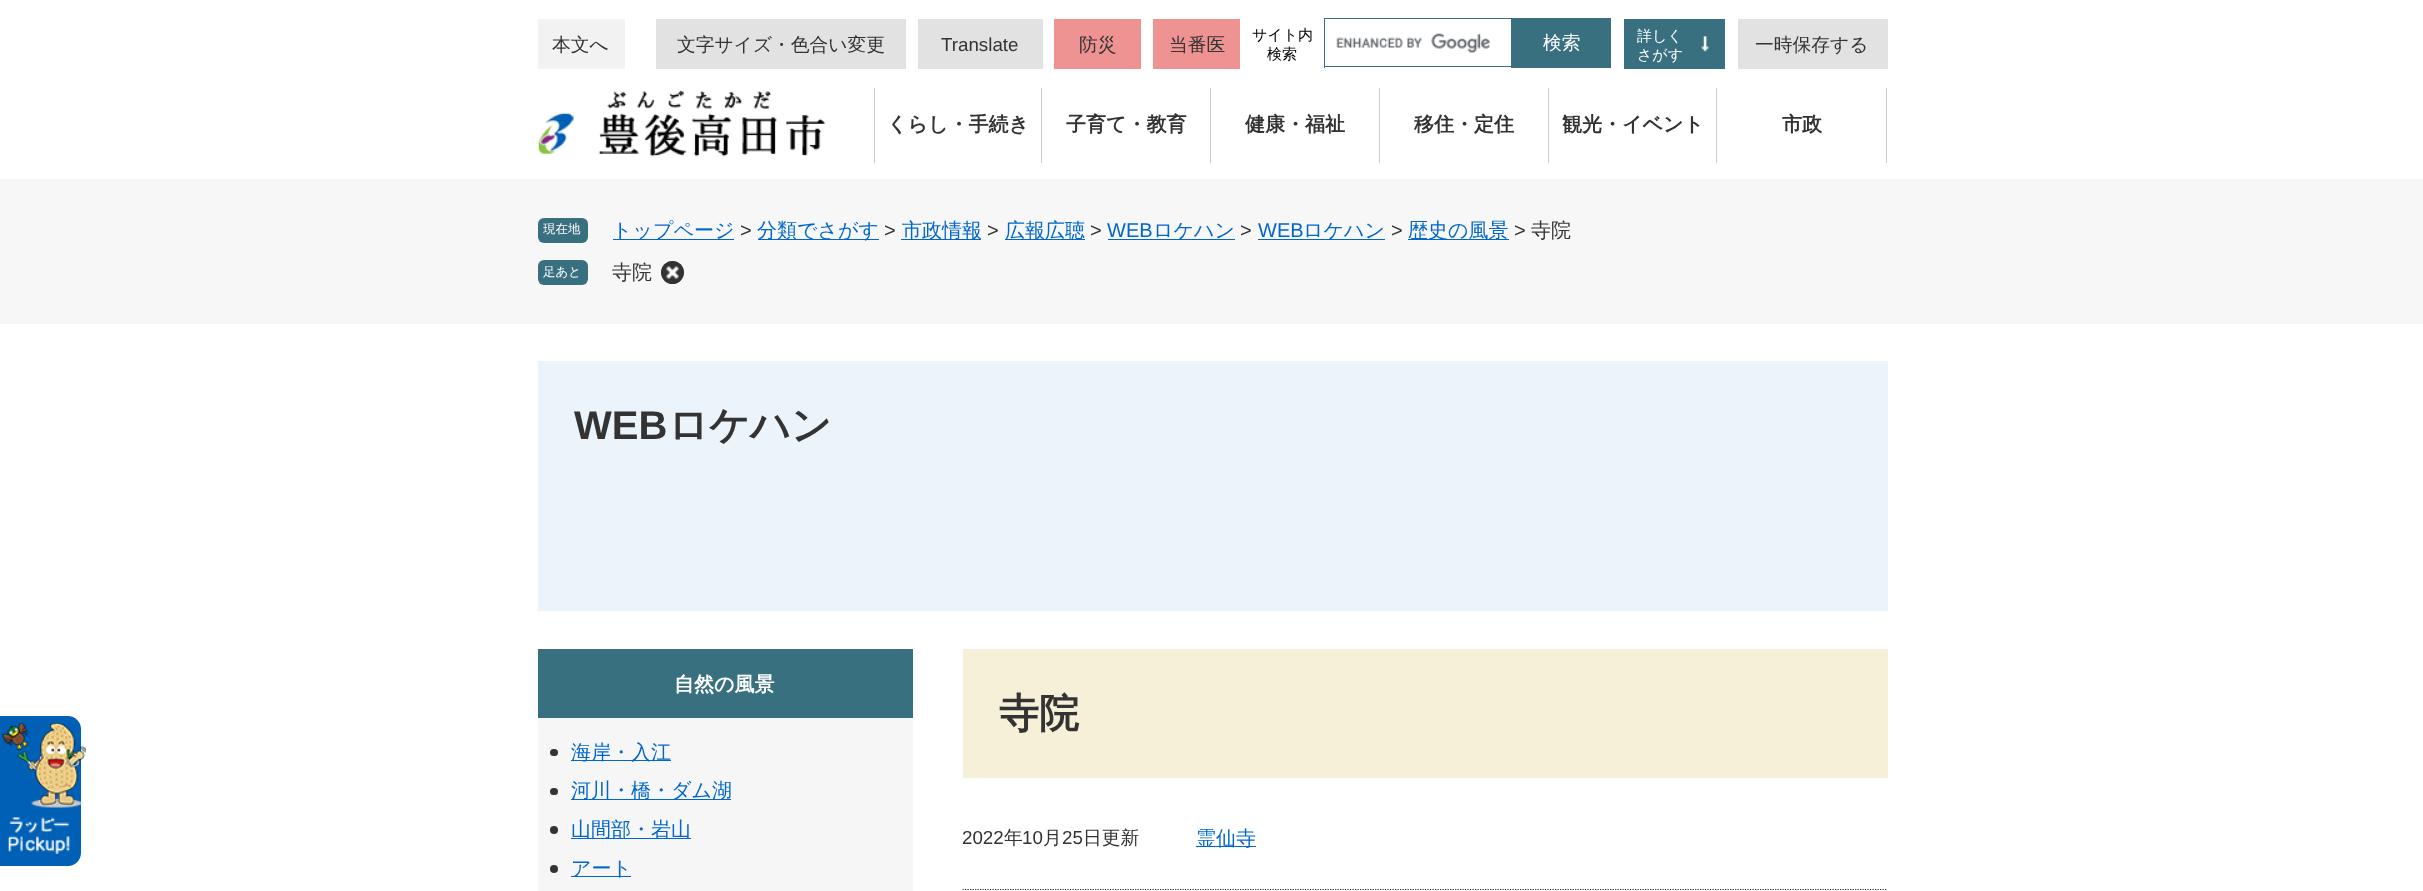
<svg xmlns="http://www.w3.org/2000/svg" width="2423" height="891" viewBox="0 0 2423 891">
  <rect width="100%" height="100%" fill="#ffffff"/>
  <rect x="538" y="19" width="87" height="50" fill="#f2f2f2"/>
  <text x="552" y="51" font-family="WenQuanYi Zen Hei" font-size="18.75" font-weight="500" fill="#333333">本文へ</text>
  <rect x="656" y="19" width="250" height="50" fill="#e3e2e2"/>
  <text x="677" y="51" font-family="WenQuanYi Zen Hei" font-size="18.75" font-weight="500" fill="#333333">文字サイズ・色合い変更</text>
  <rect x="918" y="19" width="125" height="50" fill="#e3e2e2"/>
  <text x="941" y="51" font-family="Liberation Sans" font-size="18.75" fill="#333333">Translate</text>
  <rect x="1054" y="19" width="87" height="50" fill="#ee9292"/>
  <text x="1079" y="51" font-family="WenQuanYi Zen Hei" font-size="18.75" font-weight="500" fill="#333333">防災</text>
  <rect x="1153" y="19" width="87" height="50" fill="#ee9292"/>
  <text x="1169" y="51" font-family="WenQuanYi Zen Hei" font-size="18.75" font-weight="500" fill="#333333">当番医</text>
  <text x="1252" y="40" font-family="WenQuanYi Zen Hei" font-size="15" font-weight="500" fill="#000000">サイト内</text>
  <text x="1267" y="59" font-family="WenQuanYi Zen Hei" font-size="15" font-weight="500" fill="#000000">検索</text>
  <image x="1336" y="33" width="154" height="20" href="img1.png"/>
  <rect x="1324" y="18" width="187" height="1" fill="#397080"/>
  <rect x="1324" y="66" width="187" height="1" fill="#397080"/>
  <rect x="1324" y="18" width="1" height="50" fill="#397080"/>
  <rect x="1511" y="18" width="100" height="50" fill="#397080"/>
  <text x="1543" y="49" font-family="WenQuanYi Zen Hei" font-size="18.75" font-weight="500" fill="#ffffff">検索</text>
  <rect x="1624" y="19" width="101" height="50" fill="#397080"/>
  <image x="1701" y="36" width="8" height="16" href="img2.png"/>
  <text x="1637" y="41" font-family="WenQuanYi Zen Hei" font-size="15" font-weight="500" fill="#ffffff">詳しく</text>
  <text x="1637" y="60" font-family="WenQuanYi Zen Hei" font-size="15" font-weight="500" fill="#ffffff">さがす</text>
  <rect x="1738" y="19" width="150" height="50" fill="#e3e2e2"/>
  <text x="1755" y="51" font-family="WenQuanYi Zen Hei" font-size="18.75" font-weight="500" fill="#333333">一時保存する</text>
  <image x="538" y="90" width="288" height="67" href="img3.png"/>
  <rect x="1041" y="88" width="1" height="75" fill="#cccccc"/>
  <rect x="874" y="88" width="1" height="75" fill="#cccccc"/>
  <text x="887" y="131" font-family="WenQuanYi Zen Hei" font-size="20" font-weight="bold" fill="#333333">くらし・手続き</text>
  <rect x="1210" y="88" width="1" height="75" fill="#cccccc"/>
  <text x="1066" y="131" font-family="WenQuanYi Zen Hei" font-size="20" font-weight="bold" fill="#333333">子育て・教育</text>
  <rect x="1379" y="88" width="1" height="75" fill="#cccccc"/>
  <text x="1245" y="131" font-family="WenQuanYi Zen Hei" font-size="20" font-weight="bold" fill="#333333">健康・福祉</text>
  <rect x="1548" y="88" width="1" height="75" fill="#cccccc"/>
  <text x="1414" y="131" font-family="WenQuanYi Zen Hei" font-size="20" font-weight="bold" fill="#333333">移住・定住</text>
  <rect x="1716" y="88" width="1" height="75" fill="#cccccc"/>
  <text x="1562" y="131" font-family="WenQuanYi Zen Hei" font-size="20" font-weight="bold" fill="#333333">観光・イベント</text>
  <rect x="1886" y="88" width="1" height="75" fill="#cccccc"/>
  <text x="1782" y="131" font-family="WenQuanYi Zen Hei" font-size="20" font-weight="bold" fill="#333333">市政</text>
  <rect x="0" y="179" width="2423" height="145" fill="#f7f7f7"/>
  <rect x="538" y="218" width="50" height="25" rx="6" fill="#397080"/>
  <text x="543" y="233" font-family="WenQuanYi Zen Hei" font-size="12.5" font-weight="500" fill="#ffffff">現在地</text>
  <rect x="613" y="239" width="121" height="1" fill="#0066cc"/>
  <text x="612" y="237" font-family="WenQuanYi Zen Hei" font-size="20" font-weight="500" fill="#0066cc">トップページ</text>
  <text x="740" y="237" font-family="Liberation Sans" font-size="20" fill="#333333">&gt;</text>
  <rect x="758" y="239" width="121" height="1" fill="#0066cc"/>
  <text x="757" y="237" font-family="WenQuanYi Zen Hei" font-size="20" font-weight="500" fill="#0066cc">分類でさがす</text>
  <text x="884" y="237" font-family="Liberation Sans" font-size="20" fill="#333333">&gt;</text>
  <rect x="901" y="239" width="80" height="1" fill="#0066cc"/>
  <text x="902" y="237" font-family="WenQuanYi Zen Hei" font-size="20" font-weight="500" fill="#0066cc">市政情報</text>
  <text x="987" y="237" font-family="Liberation Sans" font-size="20" fill="#333333">&gt;</text>
  <rect x="1005" y="239" width="80" height="1" fill="#0066cc"/>
  <text x="1005" y="237" font-family="WenQuanYi Zen Hei" font-size="20" font-weight="500" fill="#0066cc">広報広聴</text>
  <text x="1090" y="237" font-family="Liberation Sans" font-size="20" fill="#333333">&gt;</text>
  <text x="1107" y="237" font-family="Liberation Sans" font-size="20" fill="#0066cc">WEB</text>
  <rect x="1108" y="239" width="127" height="1" fill="#0066cc"/>
  <text x="1153" y="237" font-family="WenQuanYi Zen Hei" font-size="20" font-weight="500" fill="#0066cc">ロケハン</text>
  <text x="1240" y="237" font-family="Liberation Sans" font-size="20" fill="#333333">&gt;</text>
  <text x="1258" y="237" font-family="Liberation Sans" font-size="20" fill="#0066cc">WEB</text>
  <rect x="1258" y="239" width="127" height="1" fill="#0066cc"/>
  <text x="1303" y="237" font-family="WenQuanYi Zen Hei" font-size="20" font-weight="500" fill="#0066cc">ロケハン</text>
  <text x="1391" y="237" font-family="Liberation Sans" font-size="20" fill="#333333">&gt;</text>
  <rect x="1408" y="239" width="101" height="1" fill="#0066cc"/>
  <text x="1408" y="237" font-family="WenQuanYi Zen Hei" font-size="20" font-weight="500" fill="#0066cc">歴史の風景</text>
  <text x="1514" y="237" font-family="Liberation Sans" font-size="20" fill="#333333">&gt;</text>
  <text x="1531" y="237" font-family="WenQuanYi Zen Hei" font-size="20" font-weight="500" fill="#333333">寺院</text>
  <rect x="538" y="260" width="50" height="25" rx="6" fill="#397080"/>
  <text x="543" y="276" font-family="WenQuanYi Zen Hei" font-size="12.5" font-weight="500" fill="#ffffff">足あと</text>
  <text x="612" y="279" font-family="WenQuanYi Zen Hei" font-size="20" font-weight="500" fill="#333333">寺院</text>
  <circle cx="672.5" cy="272.5" r="11.5" fill="#333333"/>
  <image x="661" y="261" width="23" height="23" href="img4.png"/>
  <rect x="538" y="361" width="1350" height="250" fill="#ebf3fb"/>
  <text x="574" y="439" font-family="Liberation Sans" font-size="40" font-weight="bold" fill="#333333">WEB</text>
  <text x="668" y="439" font-family="WenQuanYi Zen Hei" font-size="40" font-weight="bold" fill="#333333">ロケハン</text>
  <path d="M0 716H68C75 716 81 722 81 729V853C81 860 75 866 68 866H0Z" fill="#0060b6"/>
  <image x="2" y="723" width="84" height="131" href="img5.png"/>
  <rect x="538" y="718" width="375" height="173" fill="#f6f6f6"/>
  <rect x="538" y="649" width="375" height="69" fill="#397080"/>
  <text x="674" y="691" font-family="WenQuanYi Zen Hei" font-size="20" font-weight="bold" fill="#ffffff">自然の風景</text>
  <rect x="550" y="749" width="8" height="7" rx="3.5" fill="#333333"/>
  <rect x="571" y="760" width="100" height="1" fill="#0066cc"/>
  <text x="571" y="759" font-family="WenQuanYi Zen Hei" font-size="20" font-weight="500" fill="#0066cc">海岸・入江</text>
  <rect x="550" y="788" width="8" height="7" rx="3.5" fill="#333333"/>
  <rect x="571" y="799" width="160" height="1" fill="#0066cc"/>
  <text x="571" y="797" font-family="WenQuanYi Zen Hei" font-size="20" font-weight="500" fill="#0066cc">河川・橋・ダム湖</text>
  <circle cx="554" cy="830" r="4" fill="#333333"/>
  <rect x="571" y="838" width="120" height="1" fill="#0066cc"/>
  <text x="571" y="836" font-family="WenQuanYi Zen Hei" font-size="20" font-weight="500" fill="#0066cc">山間部・岩山</text>
  <circle cx="554" cy="869" r="4" fill="#333333"/>
  <rect x="571" y="876" width="60" height="1" fill="#0066cc"/>
  <text x="571" y="875" font-family="WenQuanYi Zen Hei" font-size="20" font-weight="500" fill="#0066cc">アート</text>
  <rect x="963" y="649" width="925" height="129" fill="#f7f0d8"/>
  <text x="999" y="727" font-family="WenQuanYi Zen Hei" font-size="40" font-weight="bold" fill="#333333">寺院</text>
  <path d="M962.5 889.5H1887.5" fill="none" stroke="#333333" stroke-width="1.2" stroke-dasharray="1.25 1.25"/>
  <text x="962" y="844" font-family="Liberation Sans" font-size="18.75" fill="#333333">2022</text>
  <text x="1004" y="844" font-family="WenQuanYi Zen Hei" font-size="18.75" font-weight="500" fill="#333333">年</text>
  <text x="1022" y="844" font-family="Liberation Sans" font-size="18.75" fill="#333333">10</text>
  <text x="1043" y="844" font-family="WenQuanYi Zen Hei" font-size="18.75" font-weight="500" fill="#333333">月</text>
  <text x="1062" y="844" font-family="Liberation Sans" font-size="18.75" fill="#333333">25</text>
  <text x="1083" y="844" font-family="WenQuanYi Zen Hei" font-size="18.75" font-weight="500" fill="#333333">日更新</text>
  <rect x="1196" y="846" width="60" height="1" fill="#0066cc"/>
  <text x="1196" y="845" font-family="WenQuanYi Zen Hei" font-size="20" font-weight="500" fill="#0066cc">霊仙寺</text>
</svg>
